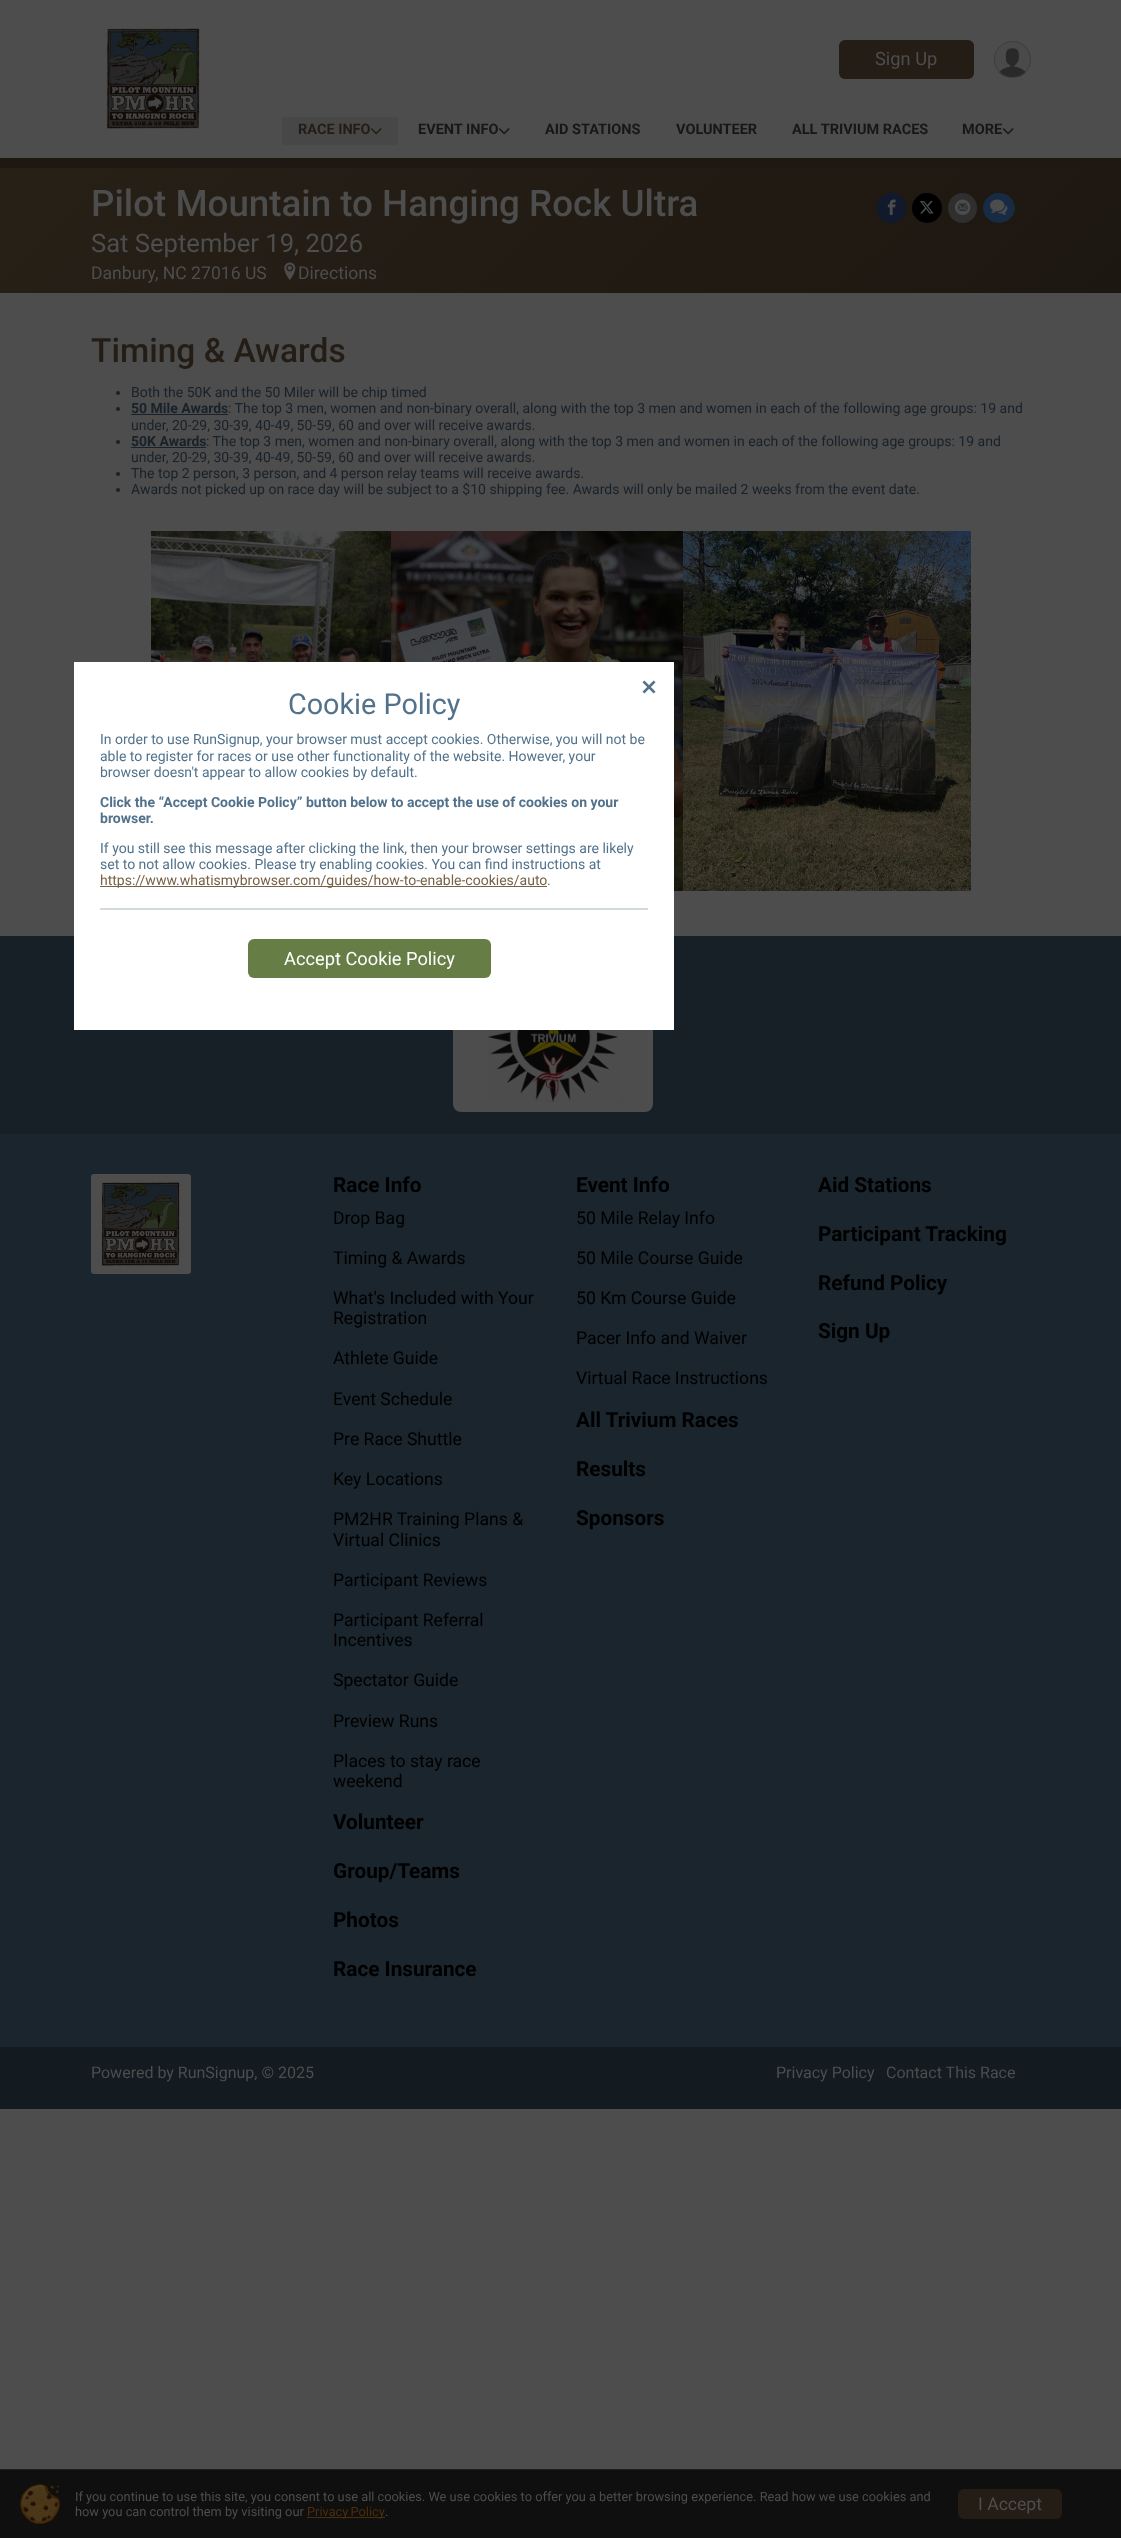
<svg xmlns="http://www.w3.org/2000/svg" width="1121" height="2538" viewBox="0 0 1121 2538">
  <defs>
    <linearGradient id="g1" gradientUnits="userSpaceOnUse" x1="872" y1="542" x2="249" y2="-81"><stop offset="0" stop-color="#1d1711"/><stop offset="1" stop-color="#272017"/></linearGradient>
  </defs>
  <rect width="100%" height="100%" fill="#4d4d4d"/>
  <image x="106" y="28" width="94" height="101" href="img1.png"/>
  <rect x="839" y="40" width="135" height="39" rx="6" fill="#241d15"/>
  <text x="875" y="65" font-family="Roboto" font-size="18.25" fill="#4d4d4d">Sign Up</text>
  <image x="995" y="42" width="35" height="35" href="img2.png"/>
  <circle cx="1012.5" cy="59.5" r="18" fill="none" stroke="#3d3d3d"/>
  <rect x="282" y="117" width="116" height="28" rx="3" fill="#474747"/>
  <text x="298" y="134" font-family="Roboto" font-size="14.5" font-weight="bold" fill="#241d15">RACE INFO</text>
  <image x="370" y="128" width="12" height="7" href="img3.png"/>
  <text x="418" y="134" font-family="Roboto" font-size="14.5" font-weight="bold" fill="#171717">EVENT INFO</text>
  <image x="498" y="128" width="12" height="7" href="img4.png"/>
  <text x="545" y="134" font-family="Roboto" font-size="14.5" font-weight="bold" fill="#171717">AID STATIONS</text>
  <text x="676" y="134" font-family="Roboto" font-size="14.5" font-weight="bold" fill="#171717">VOLUNTEER</text>
  <text x="792" y="134" font-family="Roboto" font-size="14.5" font-weight="bold" fill="#171717">ALL TRIVIUM RACES</text>
  <text x="962" y="134" font-family="Roboto" font-size="14.5" font-weight="bold" fill="#171717">MORE</text>
  <image x="1002" y="128" width="12" height="7" href="img4.png"/>
  <rect x="0" y="168" width="1121" height="125" fill="url(#g1)"/>
  <rect x="0" y="158" width="1121" height="10" fill="#1e1812"/>
  <text x="91" y="216" font-family="Roboto" font-size="36.75" font-weight="500" fill="#4d4d4d">Pilot Mountain to Hanging Rock Ultra</text>
  <text x="91" y="252" font-family="Roboto" font-size="25.6" fill="#4d4d4d">Sat September 19, 2026</text>
  <text x="91" y="279" font-family="Roboto" font-size="17.6" fill="#4d4d4d">Danbury, NC 27016 US</text>
  <image x="284" y="262" width="12" height="18" href="img5.png"/>
  <text x="298" y="279" font-family="Roboto" font-size="17.6" fill="#4d4d4d">Directions</text>
  <rect x="877" y="193" width="29" height="30" rx="14.5" fill="#11192d"/>
  <image x="887" y="199" width="9" height="16" href="img6.png"/>
  <circle cx="927" cy="208" r="15" fill="#000000"/>
  <image x="920" y="201" width="14" height="13" href="img7.png"/>
  <rect x="948" y="193" width="29" height="30" rx="14.5" fill="#2f2f2f"/>
  <image x="955" y="199" width="16" height="16" href="img8.png"/>
  <ellipse cx="999" cy="208" rx="16" ry="15" fill="#172c44"/>
  <image x="990" y="199" width="18" height="16" href="img9.png"/>
  <text x="91" y="362" font-family="Roboto" font-size="33.5" font-weight="500" fill="#241d15">Timing &amp; Awards</text>
  <circle cx="118" cy="393" r="2" fill="#19222a"/>
  <text x="131" y="397" font-family="Roboto" font-size="14" fill="#19222a">Both the 50K and the 50 Miler will be chip timed</text>
  <circle cx="118" cy="409" r="2" fill="#19222a"/>
  <text x="131" y="413" font-family="Roboto" font-size="14" font-weight="bold" fill="#19222a">50 Mile Awards</text>
  <rect x="131" y="414" width="97" height="1" fill="#19222a"/>
  <text x="228" y="413" font-family="Roboto" font-size="14" fill="#19222a">: The top 3 men, women and non-binary overall, along with the top 3 men and women in each of the following age groups: 19 and</text>
  <text x="131" y="430" font-family="Roboto" font-size="14" fill="#19222a">under, 20-29, 30-39, 40-49, 50-59, 60 and over will receive awards.</text>
  <circle cx="118" cy="442" r="2" fill="#19222a"/>
  <text x="131" y="446" font-family="Roboto" font-size="14" font-weight="bold" fill="#19222a">50K Awards</text>
  <rect x="131" y="447" width="75" height="1" fill="#19222a"/>
  <text x="206" y="446" font-family="Roboto" font-size="14" fill="#19222a">: The top 3 men, women and non-binary overall, along with the top 3 men and women in each of the following age groups: 19 and</text>
  <text x="131" y="462" font-family="Roboto" font-size="14" fill="#19222a">under, 20-29, 30-39, 40-49, 50-59, 60 and over will receive awards.</text>
  <circle cx="118" cy="474" r="2" fill="#19222a"/>
  <text x="131" y="478" font-family="Roboto" font-size="14" fill="#19222a">The top 2 person, 3 person, and 4 person relay teams will receive awards.</text>
  <circle cx="118" cy="490" r="2" fill="#19222a"/>
  <text x="131" y="494" font-family="Roboto" font-size="14" fill="#19222a">Awards not picked up on race day will be subject to a $10 shipping fee. Awards will only be mailed 2 weeks from the event date.</text>
  <image x="151" y="531" width="820" height="360" href="img10.png"/>
  <rect x="0" y="2047" width="1121" height="62" fill="#131a20"/>
  <rect x="0" y="936" width="1121" height="198" fill="#172027"/>
  <rect x="453" y="962" width="200" height="150" rx="8" fill="#4d4d4d"/>
  <image x="488" y="1030" width="130" height="72" href="img11.png"/>
  <rect x="0" y="1134" width="1121" height="913" fill="#1a252d"/>
  <rect x="91" y="1174" width="100" height="100" rx="3" fill="#4d4d4d"/>
  <image x="101" y="1182" width="79" height="84" href="img12.png"/>
  <text x="333" y="1192" font-family="Roboto" font-size="20.75" font-weight="bold" fill="#000000">Race Info</text>
  <text x="333" y="1224" font-family="Roboto" font-size="17.6" fill="#000000">Drop Bag</text>
  <text x="333" y="1264" font-family="Roboto" font-size="17.6" fill="#000000">Timing &amp; Awards</text>
  <text x="333" y="1304" font-family="Roboto" font-size="17.6" fill="#000000">What's Included with Your</text>
  <text x="333" y="1324" font-family="Roboto" font-size="17.6" fill="#000000">Registration</text>
  <text x="333" y="1364" font-family="Roboto" font-size="17.6" fill="#000000">Athlete Guide</text>
  <text x="333" y="1405" font-family="Roboto" font-size="17.6" fill="#000000">Event Schedule</text>
  <text x="333" y="1445" font-family="Roboto" font-size="17.6" fill="#000000">Pre Race Shuttle</text>
  <text x="333" y="1485" font-family="Roboto" font-size="17.6" fill="#000000">Key Locations</text>
  <text x="333" y="1525" font-family="Roboto" font-size="17.6" fill="#000000">PM2HR Training Plans &amp;</text>
  <text x="333" y="1546" font-family="Roboto" font-size="17.6" fill="#000000">Virtual Clinics</text>
  <text x="333" y="1586" font-family="Roboto" font-size="17.6" fill="#000000">Participant Reviews</text>
  <text x="333" y="1626" font-family="Roboto" font-size="17.6" fill="#000000">Participant Referral</text>
  <text x="333" y="1646" font-family="Roboto" font-size="17.6" fill="#000000">Incentives</text>
  <text x="333" y="1686" font-family="Roboto" font-size="17.6" fill="#000000">Spectator Guide</text>
  <text x="333" y="1727" font-family="Roboto" font-size="17.6" fill="#000000">Preview Runs</text>
  <text x="333" y="1767" font-family="Roboto" font-size="17.6" fill="#000000">Places to stay race</text>
  <text x="333" y="1787" font-family="Roboto" font-size="17.6" fill="#000000">weekend</text>
  <text x="333" y="1829" font-family="Roboto" font-size="20.75" font-weight="bold" fill="#000000">Volunteer</text>
  <text x="333" y="1878" font-family="Roboto" font-size="20.75" font-weight="bold" fill="#000000">Group/Teams</text>
  <text x="333" y="1927" font-family="Roboto" font-size="20.75" font-weight="bold" fill="#000000">Photos</text>
  <text x="333" y="1976" font-family="Roboto" font-size="20.75" font-weight="bold" fill="#000000">Race Insurance</text>
  <text x="576" y="1192" font-family="Roboto" font-size="20.75" font-weight="bold" fill="#000000">Event Info</text>
  <text x="576" y="1224" font-family="Roboto" font-size="17.6" fill="#000000">50 Mile Relay Info</text>
  <text x="576" y="1264" font-family="Roboto" font-size="17.6" fill="#000000">50 Mile Course Guide</text>
  <text x="576" y="1304" font-family="Roboto" font-size="17.6" fill="#000000">50 Km Course Guide</text>
  <text x="576" y="1344" font-family="Roboto" font-size="17.6" fill="#000000">Pacer Info and Waiver</text>
  <text x="576" y="1384" font-family="Roboto" font-size="17.6" fill="#000000">Virtual Race Instructions</text>
  <text x="576" y="1427" font-family="Roboto" font-size="20.75" font-weight="bold" fill="#000000">All Trivium Races</text>
  <text x="576" y="1476" font-family="Roboto" font-size="20.75" font-weight="bold" fill="#000000">Results</text>
  <text x="576" y="1525" font-family="Roboto" font-size="20.75" font-weight="bold" fill="#000000">Sponsors</text>
  <text x="818" y="1192" font-family="Roboto" font-size="20.75" font-weight="bold" fill="#000000">Aid Stations</text>
  <text x="818" y="1241" font-family="Roboto" font-size="20.75" font-weight="bold" fill="#000000">Participant Tracking</text>
  <text x="818" y="1290" font-family="Roboto" font-size="20.75" font-weight="bold" fill="#000000">Refund Policy</text>
  <text x="818" y="1338" font-family="Roboto" font-size="20.75" font-weight="bold" fill="#000000">Sign Up</text>
  <text x="91" y="2078" font-family="Roboto" font-size="16" fill="#4d4d4d">Powered by RunSignup, © 2025</text>
  <text x="776" y="2078" font-family="Roboto" font-size="16" fill="#4d4d4d">Privacy Policy</text>
  <text x="886" y="2078" font-family="Roboto" font-size="16" fill="#4d4d4d">Contact This Race</text>
  <rect x="74.5" y="662.5" width="599" height="367" fill="none" stroke="#ffffff"/>
  <rect x="75" y="663" width="598" height="366" fill="#ffffff"/>
  <image x="642" y="680" width="14" height="14" href="img13.png"/>
  <text x="288" y="714" font-family="Roboto" font-size="28.75" fill="#52728b">Cookie Policy</text>
  <text x="100" y="744" font-family="Roboto" font-size="14" fill="#52728b">In order to use RunSignup, your browser must accept cookies. Otherwise, you will not be</text>
  <text x="100" y="761" font-family="Roboto" font-size="14" fill="#52728b">able to register for races or use other functionality of the website. However, your</text>
  <text x="100" y="777" font-family="Roboto" font-size="14" fill="#52728b">browser doesn't appear to allow cookies by default.</text>
  <text x="100" y="807" font-family="Roboto" font-size="14" font-weight="bold" fill="#52728b">Click the “Accept Cookie Policy” button below to accept the use of cookies on your</text>
  <text x="100" y="823" font-family="Roboto" font-size="14" font-weight="bold" fill="#52728b">browser.</text>
  <text x="100" y="853" font-family="Roboto" font-size="14" fill="#52728b">If you still see this message after clicking the link, then your browser settings are likely</text>
  <text x="100" y="869" font-family="Roboto" font-size="14" fill="#52728b">set to not allow cookies. Please try enabling cookies. You can find instructions at</text>
  <rect x="100" y="886" width="447" height="1" fill="#786146"/>
  <text x="100" y="885" font-family="Roboto" font-size="14" fill="#786146">https://www.whatismybrowser.com/guides/how-to-enable-cookies/auto</text>
  <text x="547" y="885" font-family="Roboto" font-size="14" fill="#52728b">.</text>
  <rect x="100" y="908" width="548" height="2" fill="#d3dbdf"/>
  <rect x="248" y="939" width="243" height="39" rx="6" fill="#667d45"/>
  <text x="284" y="965" font-family="Roboto" font-size="18.25" fill="#ffffff">Accept Cookie Policy</text>
  <rect x="0" y="2470" width="1121" height="68" fill="#0f0f0f"/>
  <rect x="0" y="2469" width="1121" height="1" fill="#1f1f1f"/>
  <image x="20" y="2484" width="40" height="40" href="img14.png"/>
  <text x="75" y="2501" font-family="Roboto" font-size="12.8" fill="#4d4d4d">If you continue to use this site, you consent to use all cookies. We use cookies to offer you a better browsing experience. Read how we use cookies and</text>
  <text x="75" y="2516" font-family="Roboto" font-size="12.8" fill="#4d4d4d">how you can control them by visiting our</text>
  <rect x="307" y="2517" width="78" height="1" fill="#4c2e0b"/>
  <text x="307" y="2516" word-spacing="-1" font-family="Roboto" font-size="12.8" fill="#4c2e0b">Privacy Policy</text>
  <text x="385" y="2516" font-family="Roboto" font-size="12.8" fill="#4d4d4d">.</text>
  <rect x="958" y="2489" width="104" height="30" rx="6" fill="#241d15"/>
  <text x="978" y="2510" font-family="Roboto" font-size="17.6" fill="#4d4d4d">I Accept</text>
</svg>
